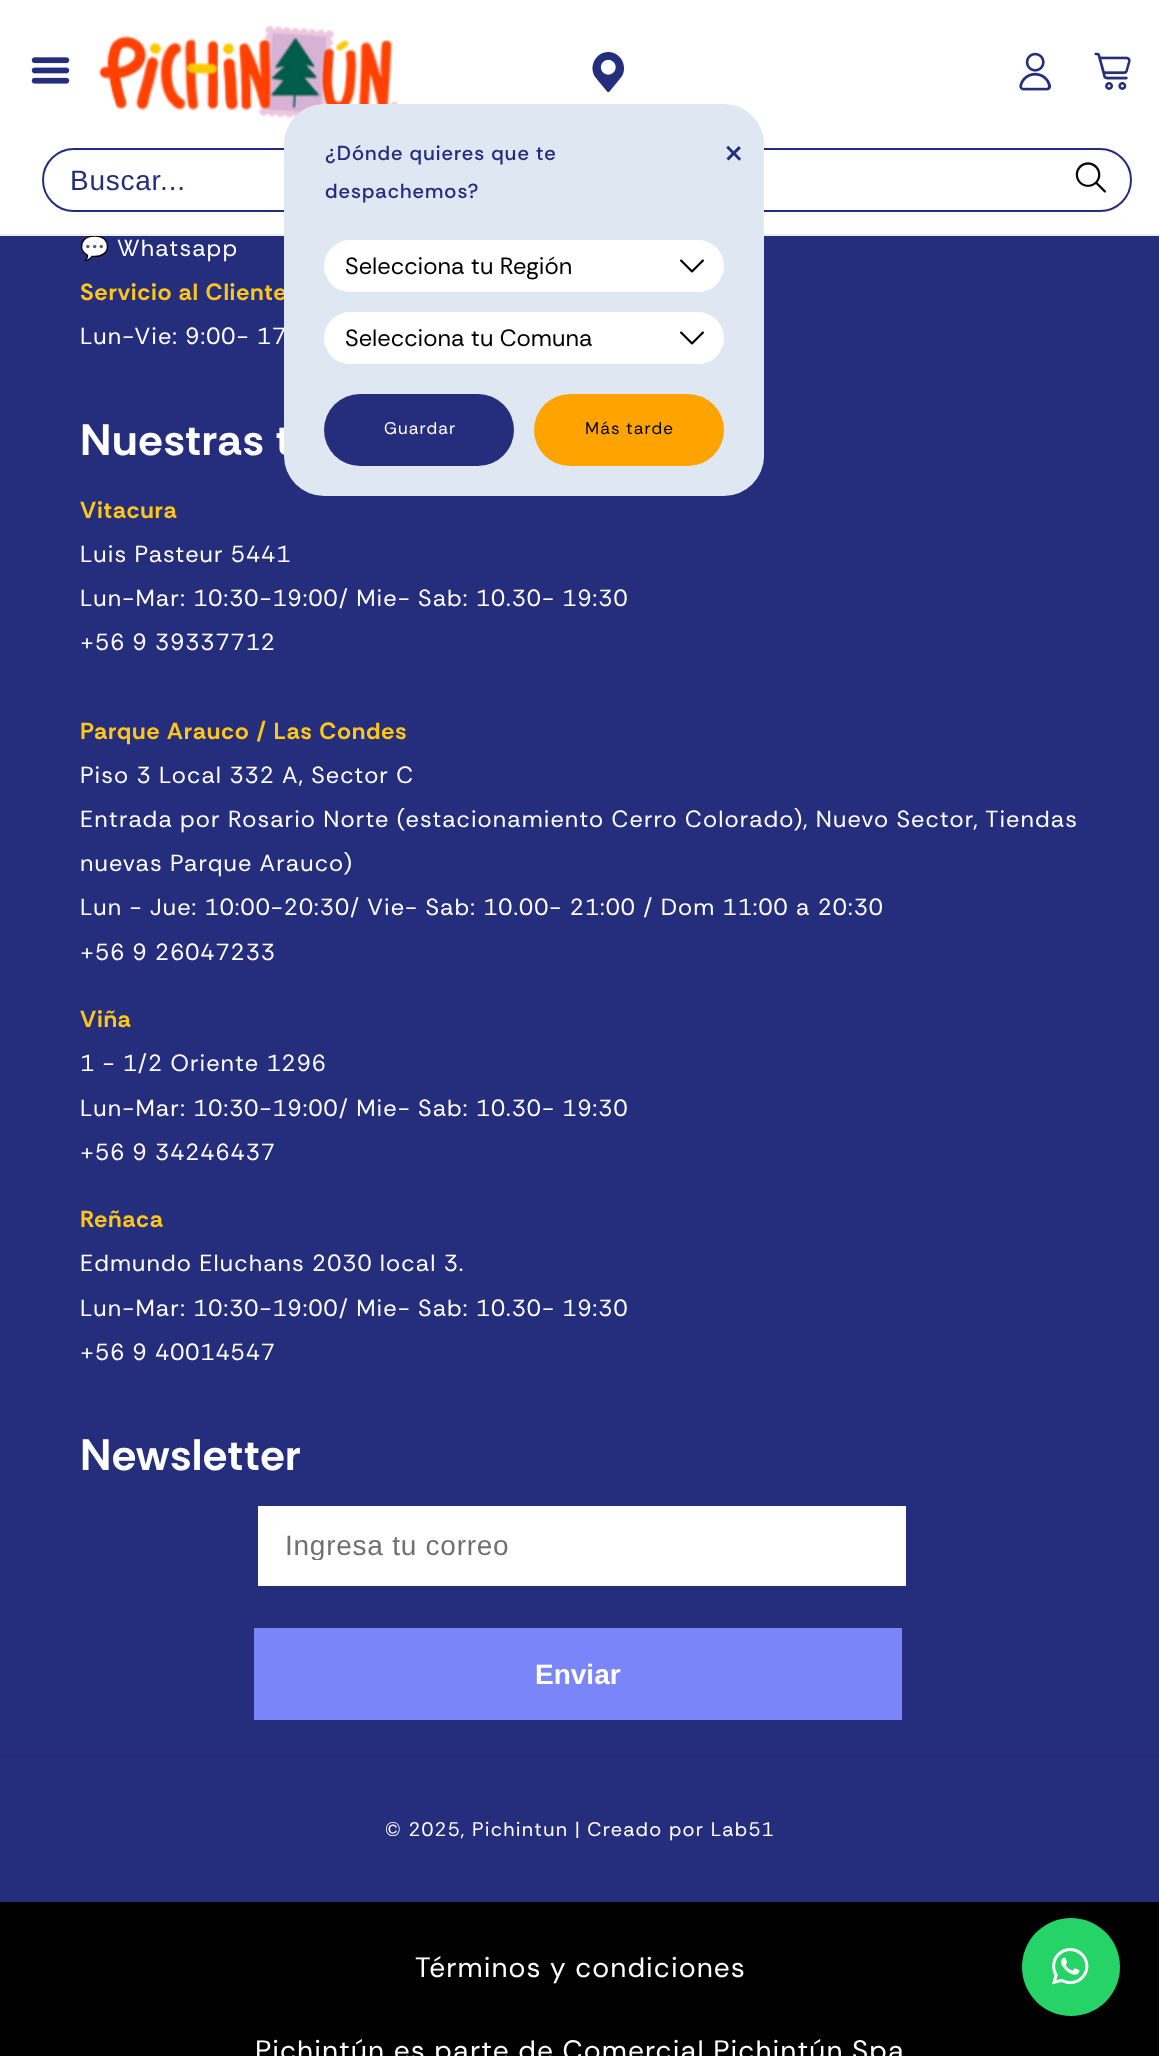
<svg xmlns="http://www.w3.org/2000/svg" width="1159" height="2056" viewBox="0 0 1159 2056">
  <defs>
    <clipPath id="clip1"><rect x="286" y="1528" width="530" height="32"/></clipPath>
  </defs>
  <rect width="100%" height="100%" fill="#242e7d"/>
  <rect x="0" y="0" width="1159" height="234" fill="#ffffff"/>
  <text x="80" y="256" font-family="Noto Color Emoji" font-size="23.4" letter-spacing="1.08" fill="#ffffff">💬</text>
  <rect x="0" y="234" width="1159" height="2" fill="#ececec"/>
  <image x="31" y="57" width="39" height="27" href="img1.png"/>
  <image x="1019" y="52" width="33" height="39" href="img2.png"/>
  <image x="1094" y="52" width="37" height="38" href="img3.png"/>
  <rect x="43" y="149" width="1088" height="62" rx="31" fill="none" stroke="#242d7d" stroke-width="2"/>
  <text x="70" y="190" font-family="Liberation Sans" font-size="28" letter-spacing="0.75" fill="#242d7d">Buscar...</text>
  <image x="1075" y="162" width="31" height="31" href="img4.png"/>
  <image x="98" y="25" width="300" height="95" href="img5.png"/>
  <image x="592" y="52" width="32" height="40" href="img6.png"/>
  <text x="80" y="300" font-family="Rethink Sans" font-size="23.4" font-weight="bold" letter-spacing="1.08" fill="#ffc61a">Servicio al Cliente</text>
  <text x="80" y="344" font-family="Rethink Sans" font-size="23.4" letter-spacing="1.08" fill="#ffffff">Lun-Vie: 9:00- 17</text>
  <text x="80" y="455" font-family="Rethink Sans" font-size="44" font-weight="bold" letter-spacing="1.08" fill="#ffffff">Nuestras t</text>
  <rect x="284" y="104" width="480" height="392" rx="40" fill="#dfe7f2"/>
  <text x="325" y="160" font-family="Rethink Sans" font-size="20.25" font-weight="500" letter-spacing="1.08" fill="#242d7d">¿Dónde quieres que te</text>
  <text x="325" y="198" font-family="Rethink Sans" font-size="20.25" font-weight="500" letter-spacing="1.08" fill="#242d7d">despachemos?</text>
  <text x="717" y="153" transform="rotate(45 717 153)" font-family="Rethink Sans" font-size="40" letter-spacing="1.08" fill="#242d7d">+</text>
  <rect x="324" y="240" width="400" height="52" rx="26" fill="#ffffff"/>
  <image x="680" y="259" width="24" height="14" href="img7.png"/>
  <text x="345" y="274" font-family="Rethink Sans" font-size="23.6" fill="#000000">Selecciona tu Región</text>
  <rect x="324" y="312" width="400" height="52" rx="26" fill="#ffffff"/>
  <image x="680" y="331" width="24" height="14" href="img7.png"/>
  <text x="345" y="346" font-family="Rethink Sans" font-size="23.6" fill="#000000">Selecciona tu Comuna</text>
  <rect x="324" y="394" width="190" height="72" rx="36" fill="#242e7d"/>
  <text x="384" y="434" font-family="Rethink Sans" font-size="17" letter-spacing="1.08" fill="#ffffff">Guardar</text>
  <rect x="534" y="394" width="190" height="72" rx="36" fill="#ffa300"/>
  <text x="585" y="434" font-family="Rethink Sans" font-size="17" letter-spacing="1.08" fill="#000000">Más tarde</text>
  <text x="117" y="256" font-family="Rethink Sans" font-size="23.4" letter-spacing="1.08" fill="#ffffff">Whatsapp</text>
  <text x="80" y="518" font-family="Rethink Sans" font-size="23.4" font-weight="bold" letter-spacing="1.08" fill="#ffc61a">Vitacura</text>
  <text x="80" y="562" font-family="Rethink Sans" font-size="23.4" letter-spacing="1.08" fill="#ffffff">Luis Pasteur 5441</text>
  <text x="80" y="606" font-family="Rethink Sans" font-size="23.4" letter-spacing="1.08" fill="#ffffff">Lun-Mar: 10:30-19:00/ Mie- Sab: 10.30- 19:30</text>
  <text x="80" y="650" font-family="Rethink Sans" font-size="23.4" letter-spacing="1.08" fill="#ffffff">+56 9 39337712</text>
  <text x="80" y="739" font-family="Rethink Sans" font-size="23.4" font-weight="bold" letter-spacing="1.08" fill="#ffc61a">Parque Arauco / Las Condes</text>
  <text x="80" y="783" font-family="Rethink Sans" font-size="23.4" letter-spacing="1.08" fill="#ffffff">Piso 3 Local 332 A, Sector C</text>
  <text x="80" y="827" font-family="Rethink Sans" font-size="23.4" letter-spacing="1.08" fill="#ffffff">Entrada por Rosario Norte (estacionamiento Cerro Colorado), Nuevo Sector, Tiendas</text>
  <text x="80" y="871" font-family="Rethink Sans" font-size="23.4" letter-spacing="1.08" fill="#ffffff">nuevas Parque Arauco)</text>
  <text x="80" y="915" font-family="Rethink Sans" font-size="23.4" letter-spacing="1.08" fill="#ffffff">Lun - Jue: 10:00-20:30/ Vie- Sab: 10.00- 21:00 / Dom 11:00 a 20:30</text>
  <text x="80" y="960" font-family="Rethink Sans" font-size="23.4" letter-spacing="1.08" fill="#ffffff">+56 9 26047233</text>
  <text x="80" y="1027" font-family="Rethink Sans" font-size="23.4" font-weight="bold" letter-spacing="1.08" fill="#ffc61a">Viña</text>
  <text x="80" y="1071" font-family="Rethink Sans" font-size="23.4" letter-spacing="1.08" fill="#ffffff">1 - 1/2 Oriente 1296</text>
  <text x="80" y="1116" font-family="Rethink Sans" font-size="23.4" letter-spacing="1.08" fill="#ffffff">Lun-Mar: 10:30-19:00/ Mie- Sab: 10.30- 19:30</text>
  <text x="80" y="1160" font-family="Rethink Sans" font-size="23.4" letter-spacing="1.08" fill="#ffffff">+56 9 34246437</text>
  <text x="80" y="1227" font-family="Rethink Sans" font-size="23.4" font-weight="bold" letter-spacing="1.08" fill="#ffc61a">Reñaca</text>
  <text x="80" y="1271" font-family="Rethink Sans" font-size="23.4" letter-spacing="1.08" fill="#ffffff">Edmundo Eluchans 2030 local 3.</text>
  <text x="80" y="1316" font-family="Rethink Sans" font-size="23.4" letter-spacing="1.08" fill="#ffffff">Lun-Mar: 10:30-19:00/ Mie- Sab: 10.30- 19:30</text>
  <text x="80" y="1360" font-family="Rethink Sans" font-size="23.4" letter-spacing="1.08" fill="#ffffff">+56 9 40014547</text>
  <text x="80" y="1470" font-family="Rethink Sans" font-size="44" font-weight="bold" letter-spacing="1.08" fill="#ffffff">Newsletter</text>
  <rect x="258" y="1506" width="648" height="80" fill="#ffffff"/>
  <g clip-path="url(#clip1)">
    <text x="285" y="1555" font-family="Liberation Sans" font-size="28" letter-spacing="0.75" fill="#707070">Ingresa tu correo</text>
  </g>
  <rect x="254" y="1628" width="648" height="92" fill="#7a85fa"/>
  <text x="535" y="1684" font-family="Liberation Sans" font-size="28" font-weight="bold" fill="#ffffff">Enviar</text>
  <rect x="0" y="1756" width="1159" height="2" fill="#232c74"/>
  <text x="385" y="1836" font-family="Rethink Sans" font-size="19.75" letter-spacing="1.25" fill="#ffffff">© 2025, Pichintun</text>
  <text x="575" y="1836" font-family="Rethink Sans" font-size="19.75" letter-spacing="1.25" fill="#ffffff">| Creado por Lab51</text>
  <rect x="0" y="1902" width="1159" height="154" fill="#000000"/>
  <text x="415" y="1977" font-family="Rethink Sans" font-size="28" letter-spacing="1.08" fill="#ffffff">Términos y condiciones</text>
  <text x="255" y="2060" font-family="Rethink Sans" font-size="28" letter-spacing="1.08" fill="#ffffff">Pichintún es parte de Comercial Pichintún Spa</text>
  <circle cx="1071" cy="1967" r="49" fill="#25d366"/>
  <image x="1052" y="1948" width="37" height="37" href="img8.png"/>
</svg>
